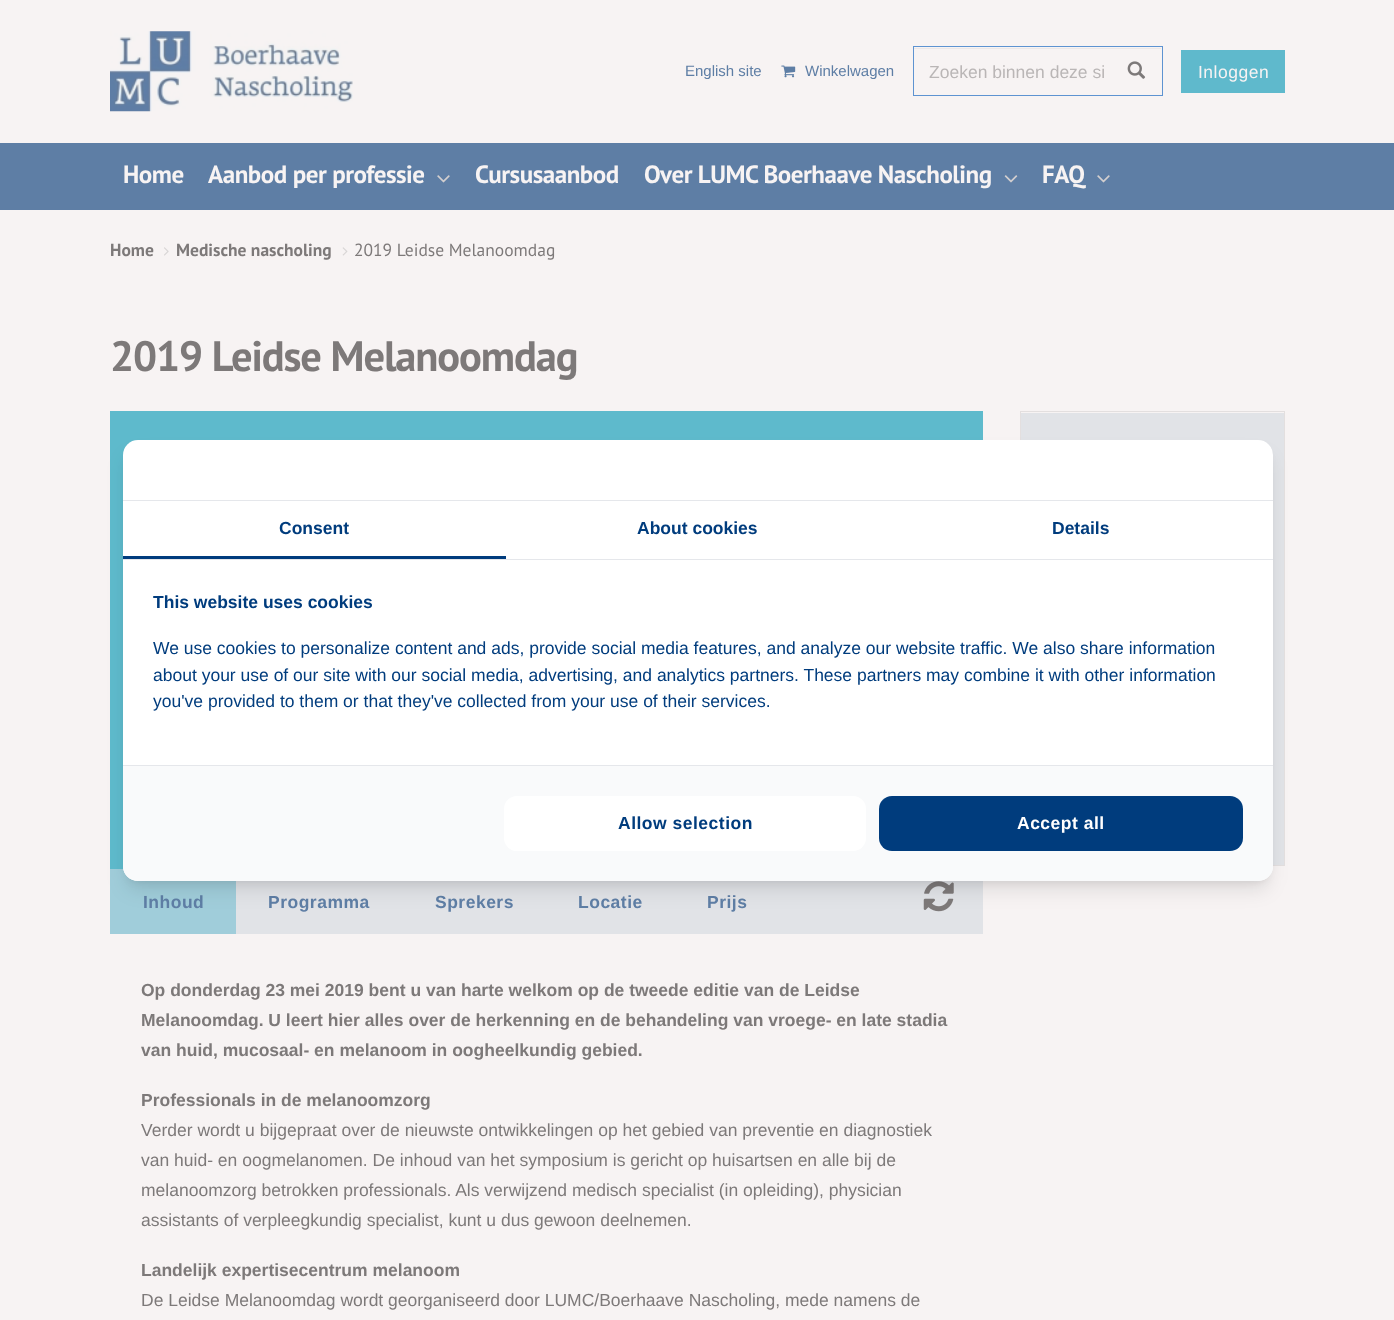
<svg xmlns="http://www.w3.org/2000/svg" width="1394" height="1320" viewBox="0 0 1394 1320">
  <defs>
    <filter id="blur1" x="-50%" y="-200%" width="200%" height="500%"><feGaussianBlur stdDeviation="4"/></filter>
    <filter id="blur2" x="-50%" y="-200%" width="200%" height="500%"><feGaussianBlur stdDeviation="9.5"/></filter>
    <clipPath id="clip1"><rect x="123" y="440" width="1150" height="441" rx="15"/></clipPath>
    <filter id="blur3" x="-50%" y="-200%" width="200%" height="500%"><feGaussianBlur stdDeviation="12.5"/></filter>
  </defs>
  <rect width="100%" height="100%" fill="#f7f3f3"/>
  <image x="110" y="31" width="243" height="81" href="img1.png"/>
  <text x="685" y="76" font-family="Liberation Sans" font-size="15" fill="#5e7ea5">English site</text>
  <image x="781" y="65" width="15" height="13" href="img2.png"/>
  <text x="805" y="76" font-family="Liberation Sans" font-size="15" fill="#5e7ea5">Winkelwagen</text>
  <rect x="914" y="48" width="247" height="1" fill="#ece8e8"/>
  <rect x="913.5" y="46.5" width="249" height="49" fill="none" stroke="#5e93d1"/>
  <text x="929" y="78" font-family="Liberation Sans" font-size="17.5" fill="#bab6b6">Zoeken binnen deze si</text>
  <image x="1127" y="61" width="19" height="18" href="img3.png"/>
  <rect x="1181" y="50" width="104" height="43" fill="#5fb9cc"/>
  <text x="1198" y="78" font-family="Liberation Sans" font-size="17.5" letter-spacing="0.5" fill="#f7f3f3">Inloggen</text>
  <rect x="0" y="143" width="1394" height="67" fill="#5e7ea5"/>
  <text x="123" y="183" font-family="PT Sans" font-size="25" font-weight="bold" letter-spacing="-0.45" fill="#f7f3f3">Home</text>
  <text x="208" y="183" font-family="PT Sans" font-size="25" font-weight="bold" letter-spacing="-0.45" fill="#f7f3f3">Aanbod per professie</text>
  <image x="437" y="175" width="13" height="8" href="img4.png"/>
  <text x="475" y="183" font-family="PT Sans" font-size="25" font-weight="bold" letter-spacing="-0.45" fill="#f7f3f3">Cursusaanbod</text>
  <text x="644" y="183" font-family="PT Sans" font-size="25" font-weight="bold" letter-spacing="-0.45" fill="#f7f3f3">Over LUMC Boerhaave Nascholing</text>
  <image x="1004" y="175" width="14" height="8" href="img5.png"/>
  <text x="1042" y="183" font-family="PT Sans" font-size="25" font-weight="bold" letter-spacing="-0.45" fill="#f7f3f3">FAQ</text>
  <image x="1097" y="175" width="13" height="8" href="img4.png"/>
  <text x="110" y="256" font-family="PT Sans" font-size="17.5" font-weight="bold" fill="#7d7979">Home</text>
  <image x="164" y="247" width="5" height="9" href="img6.png"/>
  <text x="176" y="256" font-family="PT Sans" font-size="17.5" font-weight="bold" fill="#7d7979">Medische nascholing</text>
  <image x="342" y="247" width="6" height="9" href="img7.png"/>
  <text x="354" y="256" font-family="PT Sans" font-size="17.5" fill="#7d7979">2019 Leidse Melanoomdag</text>
  <text x="110" y="371" font-family="PT Sans" font-size="42.5" font-weight="bold" letter-spacing="-1.1" fill="#7d7979">2019 Leidse Melanoomdag</text>
  <rect x="1020.5" y="411.5" width="264" height="454" fill="none" stroke="#e3dfdf"/>
  <rect x="1021" y="413" width="263" height="452" fill="#e1e3e7"/>
  <rect x="110" y="411" width="873" height="458" fill="#5ebacc"/>
  <rect x="236" y="881" width="747" height="53" fill="#e1e3e7"/>
  <rect x="110" y="869" width="126" height="65" fill="#a0cdda"/>
  <text x="143" y="908" font-family="Liberation Sans" font-size="17.5" font-weight="bold" letter-spacing="0.5" fill="#5e7ea5">Inhoud</text>
  <text x="268" y="908" font-family="Liberation Sans" font-size="17.5" font-weight="bold" letter-spacing="0.5" fill="#5e7ea5">Programma</text>
  <text x="435" y="908" font-family="Liberation Sans" font-size="17.5" font-weight="bold" letter-spacing="0.5" fill="#5e7ea5">Sprekers</text>
  <text x="578" y="908" font-family="Liberation Sans" font-size="17.5" font-weight="bold" letter-spacing="0.5" fill="#5e7ea5">Locatie</text>
  <text x="707" y="908" font-family="Liberation Sans" font-size="17.5" font-weight="bold" letter-spacing="0.5" fill="#5e7ea5">Prijs</text>
  <image x="923" y="881" width="31" height="31" href="img8.png"/>
  <text x="141" y="996" font-family="Liberation Sans" font-size="17.5" font-weight="bold" fill="#7d7979">Op donderdag 23 mei 2019 bent u van harte welkom op de tweede editie van de Leidse</text>
  <text x="141" y="1026" font-family="Liberation Sans" font-size="17.5" font-weight="bold" fill="#7d7979">Melanoomdag. U leert hier alles over de herkenning en de behandeling van vroege- en late stadia</text>
  <text x="141" y="1056" font-family="Liberation Sans" font-size="17.5" font-weight="bold" fill="#7d7979">van huid, mucosaal- en melanoom in oogheelkundig gebied.</text>
  <text x="141" y="1106" font-family="Liberation Sans" font-size="17.5" font-weight="bold" fill="#7d7979">Professionals in de melanoomzorg</text>
  <text x="141" y="1136" font-family="Liberation Sans" font-size="17.5" fill="#7d7979">Verder wordt u bijgepraat over de nieuwste ontwikkelingen op het gebied van preventie en diagnostiek</text>
  <text x="141" y="1166" font-family="Liberation Sans" font-size="17.5" fill="#7d7979">van huid- en oogmelanomen. De inhoud van het symposium is gericht op huisartsen en alle bij de</text>
  <text x="141" y="1196" font-family="Liberation Sans" font-size="17.5" fill="#7d7979">melanoomzorg betrokken professionals. Als verwijzend medisch specialist (in opleiding), physician</text>
  <text x="141" y="1226" font-family="Liberation Sans" font-size="17.5" fill="#7d7979">assistants of verpleegkundig specialist, kunt u dus gewoon deelnemen.</text>
  <text x="141" y="1276" font-family="Liberation Sans" font-size="17.5" font-weight="bold" fill="#7d7979">Landelijk expertisecentrum melanoom</text>
  <text x="141" y="1306" font-family="Liberation Sans" font-size="17.5" fill="#7d7979">De Leidse Melanoomdag wordt georganiseerd door LUMC/Boerhaave Nascholing, mede namens de</text>
  <rect x="128" y="450" width="1140" height="431" rx="10" fill="#000000" fill-opacity="0.1" filter="url(#blur1)"/>
  <rect x="126" y="456" width="1143" height="434" rx="11" fill="#000000" fill-opacity="0.1" filter="url(#blur2)"/>
  <rect x="123" y="440" width="1150" height="441" rx="15" fill="#ffffff"/>
  <rect x="123" y="500" width="1150" height="1" fill="#e5e7eb"/>
  <rect x="123" y="559" width="1150" height="1" fill="#e5e7eb"/>
  <rect x="123" y="556" width="383" height="3" fill="#003c7d"/>
  <text x="279" y="534" font-family="Liberation Sans" font-size="17.5" font-weight="bold" fill="#003c7d">Consent</text>
  <text x="637" y="534" font-family="Liberation Sans" font-size="17.5" font-weight="bold" fill="#003c7d">About cookies</text>
  <text x="1052" y="534" font-family="Liberation Sans" font-size="17.5" font-weight="bold" fill="#003c7d">Details</text>
  <text x="153" y="608" font-family="Liberation Sans" font-size="17.5" font-weight="bold" fill="#003c7d">This website uses cookies</text>
  <text x="153" y="654" font-family="Liberation Sans" font-size="17.5" fill="#003c7d">We use cookies to personalize content and ads, provide social media features, and analyze our website traffic. We also share information</text>
  <text x="153" y="681" font-family="Liberation Sans" font-size="17.5" fill="#003c7d">about your use of our site with our social media, advertising, and analytics partners. These partners may combine it with other information</text>
  <text x="153" y="707" font-family="Liberation Sans" font-size="17.5" fill="#003c7d">you've provided to them or that they've collected from your use of their services.</text>
  <g clip-path="url(#clip1)">
    <rect x="113" y="730" width="1170" height="136" fill="#ffffff" filter="url(#blur3)"/>
  </g>
  <path d="M123 765H1273V866C1273 874.5 1266.5 881 1258 881H138C129.5 881 123 874.5 123 866Z" fill="#f9fafb"/>
  <rect x="123" y="765" width="1150" height="1" fill="#e5e7eb"/>
  <rect x="504" y="796" width="362" height="55" rx="13" fill="#ffffff"/>
  <text x="618" y="829" font-family="Liberation Sans" font-size="17.5" font-weight="bold" letter-spacing="0.5" fill="#003c7d">Allow selection</text>
  <rect x="879" y="796" width="364" height="55" rx="13" fill="#003c7d"/>
  <text x="1017" y="829" font-family="Liberation Sans" font-size="17.5" font-weight="bold" letter-spacing="0.5" fill="#ffffff">Accept all</text>
</svg>
